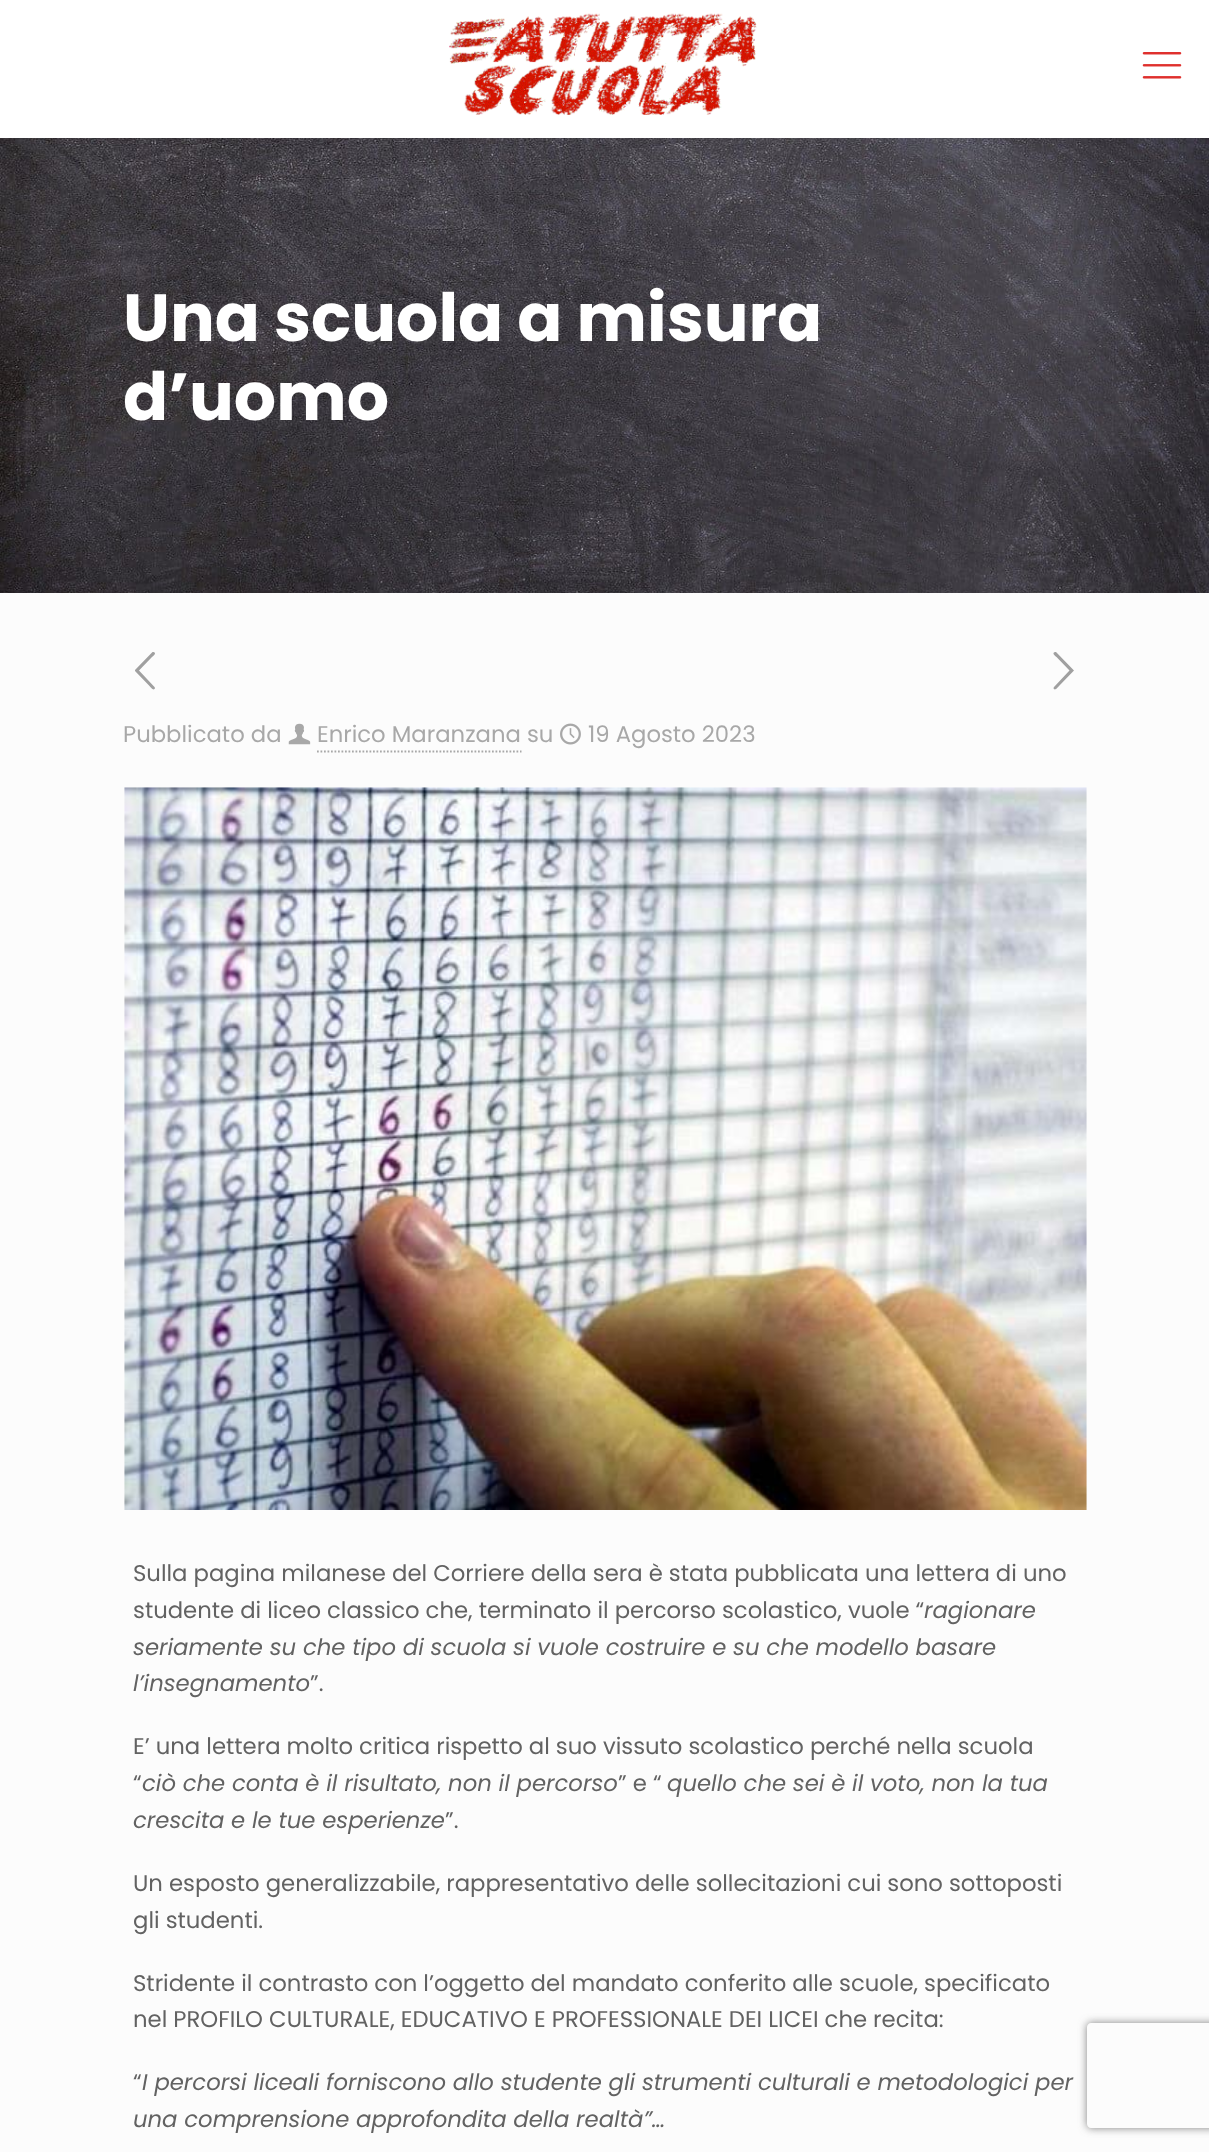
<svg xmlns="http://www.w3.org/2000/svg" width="1209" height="2152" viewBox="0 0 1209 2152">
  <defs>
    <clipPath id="clip1"><path d="M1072 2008H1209V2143H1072ZM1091 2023H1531C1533 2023 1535 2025 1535 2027V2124C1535 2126 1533 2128 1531 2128H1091C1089 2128 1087 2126 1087 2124V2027C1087 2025 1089 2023 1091 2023Z" clip-rule="evenodd"/></clipPath>
    <filter id="blur1" x="-50%" y="-200%" width="200%" height="500%"><feGaussianBlur stdDeviation="4.5"/></filter>
  </defs>
  <rect width="100%" height="100%" fill="#fcfcfc"/>
  <rect x="0" y="0" width="1209" height="138" fill="#ffffff"/>
  <image x="449" y="13" width="308" height="102" href="img1.png"/>
  <image x="1142" y="52" width="40" height="27" href="img2.png"/>
  <image x="0" y="138" width="1209" height="455" href="img3.png"/>
  <text x="123" y="341" font-family="Poppins" font-size="66.5" font-weight="bold" fill="#ffffff">Una scuola a misura</text>
  <text x="123" y="420" font-family="Poppins" font-size="66.5" font-weight="bold" fill="#ffffff">d’uomo</text>
  <path d="M154.5 687L155 688C154 692 150 686.5 149.5 686L135 671V670.5V670L152.5 652H153.5C157.5 653 152.5 656.5 152 657L139 670.5Z" fill="#a0a0a0"/>
  <path d="M1054 687L1069.5 670.5L1056.5 657C1056 656.5 1051 653 1055 652H1056L1073.5 670L1074 670.5L1073.5 671L1059 686C1058.5 686.5 1054.5 692 1053.5 688Z" fill="#a0a0a0"/>
  <text x="123" y="742" font-family="Poppins" font-size="22.75" fill="#a8a8a8">Pubblicato da</text>
  <image x="288" y="723" width="23" height="22" href="img4.png"/>
  <text x="317" y="742" font-family="Poppins" font-size="22.75" fill="#a8a8a8">Enrico Maranzana su</text>
  <path d="M317 751.5H521.5" fill="none" stroke="#a8a8a8" stroke-width="1.8" stroke-dasharray="1.75 1.75"/>
  <image x="560" y="723" width="21" height="22" href="img5.png"/>
  <text x="588" y="742" font-family="Poppins" font-size="22.75" fill="#a8a8a8">19 Agosto 2023</text>
  <image x="124" y="787" width="963" height="723" href="img6.png"/>
  <text x="133" y="1581" font-family="Poppins" font-size="22.75" fill="#626262">Sulla pagina milanese del Corriere della sera è stata pubblicata una lettera di uno</text>
  <text x="133" y="1618" font-family="Poppins" font-size="22.75" fill="#626262">studente di liceo classico che, terminato il percorso scolastico, vuole “</text>
  <text x="924" y="1618" font-family="Poppins" font-size="22.75" font-style="italic" fill="#626262">ragionare</text>
  <text x="133" y="1655" font-family="Poppins" font-size="22.75" font-style="italic" fill="#626262">seriamente su che tipo di scuola si vuole costruire e su che modello basare</text>
  <text x="133" y="1691" font-family="Poppins" font-size="22.75" font-style="italic" fill="#626262">l’insegnamento</text>
  <text x="310" y="1691" font-family="Poppins" font-size="22.75" fill="#626262">”.</text>
  <text x="133" y="1754" font-family="Poppins" font-size="22.75" fill="#626262">E’ una lettera molto critica rispetto al suo vissuto scolastico perché nella scuola</text>
  <text x="133" y="1791" font-family="Poppins" font-size="22.75" fill="#626262">“</text>
  <text x="142" y="1791" font-family="Poppins" font-size="22.75" font-style="italic" fill="#626262">ciò che conta è il risultato, non il percorso</text>
  <text x="618" y="1791" font-family="Poppins" font-size="22.75" fill="#626262">” e “</text>
  <text x="667" y="1791" font-family="Poppins" font-size="22.75" font-style="italic" fill="#626262">quello che sei è il voto, non la tua</text>
  <text x="133" y="1828" font-family="Poppins" font-size="22.75" font-style="italic" fill="#626262">crescita e le tue esperienze</text>
  <text x="445" y="1828" font-family="Poppins" font-size="22.75" fill="#626262">”.</text>
  <text x="133" y="1891" font-family="Poppins" font-size="22.75" fill="#626262">Un esposto generalizzabile, rappresentativo delle sollecitazioni cui sono sottoposti</text>
  <text x="133" y="1928" font-family="Poppins" font-size="22.75" fill="#626262">gli studenti.</text>
  <text x="133" y="1991" font-family="Poppins" font-size="22.75" fill="#626262">Stridente il contrasto con l’oggetto del mandato conferito alle scuole, specificato</text>
  <text x="133" y="2027" font-family="Poppins" font-size="22.75" fill="#626262">nel PROFILO CULTURALE, EDUCATIVO E PROFESSIONALE DEI LICEI che recita:</text>
  <text x="133" y="2090" font-family="Poppins" font-size="22.75" fill="#626262">“</text>
  <text x="142" y="2090" font-family="Poppins" font-size="22.75" font-style="italic" fill="#626262">I percorsi liceali forniscono allo studente gli strumenti culturali e metodologici per</text>
  <text x="133" y="2127" font-family="Poppins" font-size="22.75" font-style="italic" fill="#626262">una comprensione approfondita della realtà”…</text>
  <g clip-path="url(#clip1)">
    <rect x="1087" y="2023" width="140" height="105" rx="4" fill="#808080" filter="url(#blur1)"/>
  </g>
</svg>
